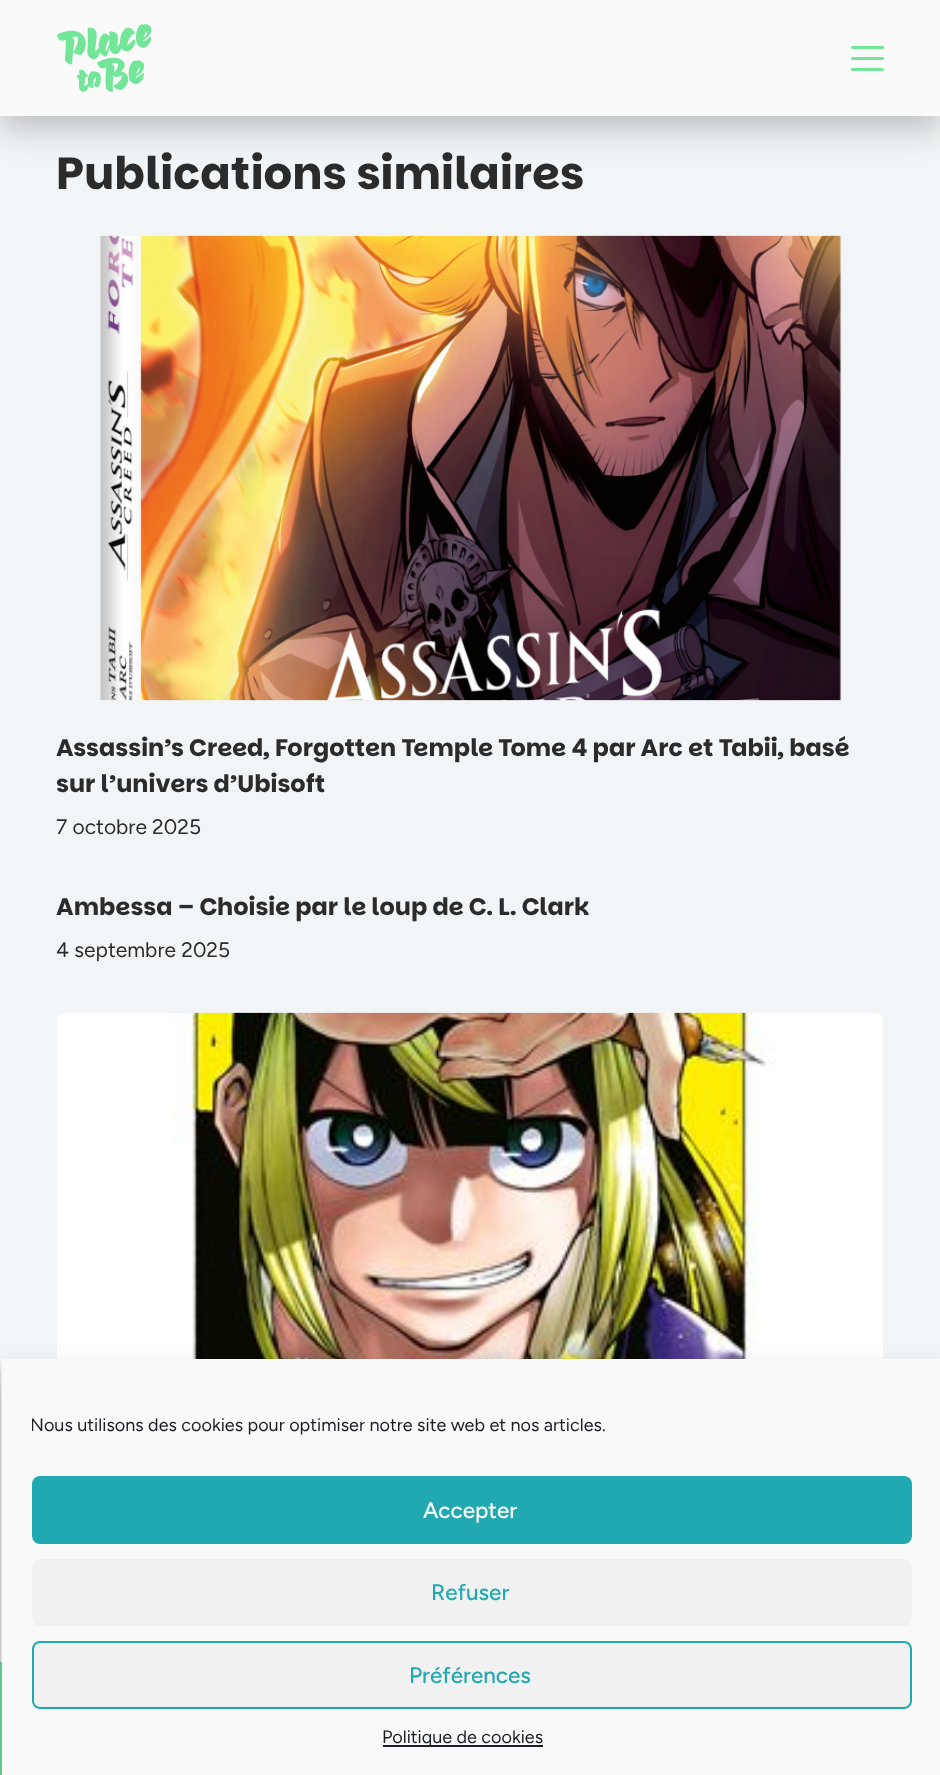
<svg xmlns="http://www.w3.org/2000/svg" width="940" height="1775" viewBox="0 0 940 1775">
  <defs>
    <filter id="blur1" x="-50%" y="-200%" width="200%" height="500%"><feGaussianBlur stdDeviation="15"/></filter>
    <clipPath id="clip1"><rect x="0" y="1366" width="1" height="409"/></clipPath>
    <filter id="blur2" x="-50%" y="-200%" width="200%" height="500%"><feGaussianBlur stdDeviation="4.5"/></filter>
    <clipPath id="clip2"><path d="M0 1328H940V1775H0ZM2 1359H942V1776H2Z" clip-rule="evenodd"/></clipPath>
    <clipPath id="clip3"><rect x="32" y="1412" width="880" height="34"/></clipPath>
  </defs>
  <rect width="100%" height="100%" fill="#f2f5f7"/>
  <rect x="0" y="15" width="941" height="116" fill="#000000" fill-opacity="0.2" filter="url(#blur1)"/>
  <rect x="0" y="0" width="940" height="116" fill="#fafafa"/>
  <image x="57" y="24" width="95" height="68" href="img1.png"/>
  <rect x="851" y="46" width="33" height="3" rx="1.5" fill="#73e599"/>
  <rect x="851" y="57" width="33" height="3" rx="1.5" fill="#73e599"/>
  <rect x="851" y="68" width="33" height="3" rx="1.5" fill="#73e599"/>
  <text x="56" y="189" font-family="Parkinsans" font-size="45" font-weight="bold" fill="#2b2b2b">Publications similaires</text>
  <image x="100" y="235" width="742" height="466" href="img2.png"/>
  <text x="56" y="756" font-family="Parkinsans" font-size="24" font-weight="bold" fill="#2b2b2b">Assassin’s Creed, Forgotten Temple Tome 4 par Arc et Tabii, basé</text>
  <text x="56" y="792" font-family="Parkinsans" font-size="24" font-weight="bold" fill="#2b2b2b">sur l’univers d’Ubisoft</text>
  <text x="56" y="834" font-family="Figtree" font-size="21" fill="#2b2b2b">7 octobre 2025</text>
  <text x="56" y="915" font-family="Parkinsans" font-size="24" font-weight="bold" fill="#2b2b2b">Ambessa – Choisie par le loup de C. L. Clark</text>
  <text x="56" y="957" font-family="Figtree" font-size="21" fill="#2b2b2b">4 septembre 2025</text>
  <image x="57" y="1012" width="826" height="347" href="img3.png"/>
  <rect x="0" y="1662" width="2" height="113" fill="#73e599"/>
  <g clip-path="url(#clip1)">
    <rect x="2" y="1368" width="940" height="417" fill="#000000" fill-opacity="0.23" filter="url(#blur2)"/>
  </g>
  <g clip-path="url(#clip2)">
    <rect x="2" y="1374" width="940" height="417" fill="#000000" fill-opacity="0.19" filter="url(#blur1)"/>
  </g>
  <rect x="2" y="1359" width="938" height="416" fill="#f9f9f9"/>
  <g clip-path="url(#clip3)">
    <text x="30" y="1431" font-family="Figtree" font-size="18" fill="#191e23">Nous utilisons des cookies pour optimiser notre site web et nos articles.</text>
  </g>
  <rect x="33" y="1477" width="878" height="66" rx="7" fill="#20a9b0" stroke="#20a9b0" stroke-width="2"/>
  <text x="423" y="1518" font-family="Figtree" font-size="22.5" font-weight="500" fill="#ffffff">Accepter</text>
  <rect x="32" y="1559" width="880" height="67" rx="8" fill="#f1f1f1"/>
  <text x="431" y="1600" font-family="Figtree" font-size="22.5" font-weight="500" fill="#20a9b0">Refuser</text>
  <rect x="33" y="1642" width="878" height="66" rx="7" fill="#f1f1f1" stroke="#20a9b0" stroke-width="2"/>
  <text x="409" y="1683" font-family="Figtree" font-size="22.5" font-weight="500" fill="#20a9b0">Préférences</text>
  <rect x="383" y="1745" width="160" height="2" fill="#191e23"/>
  <text x="382" y="1743" font-family="Figtree" font-size="18" fill="#191e23">Politique de cookies</text>
</svg>
